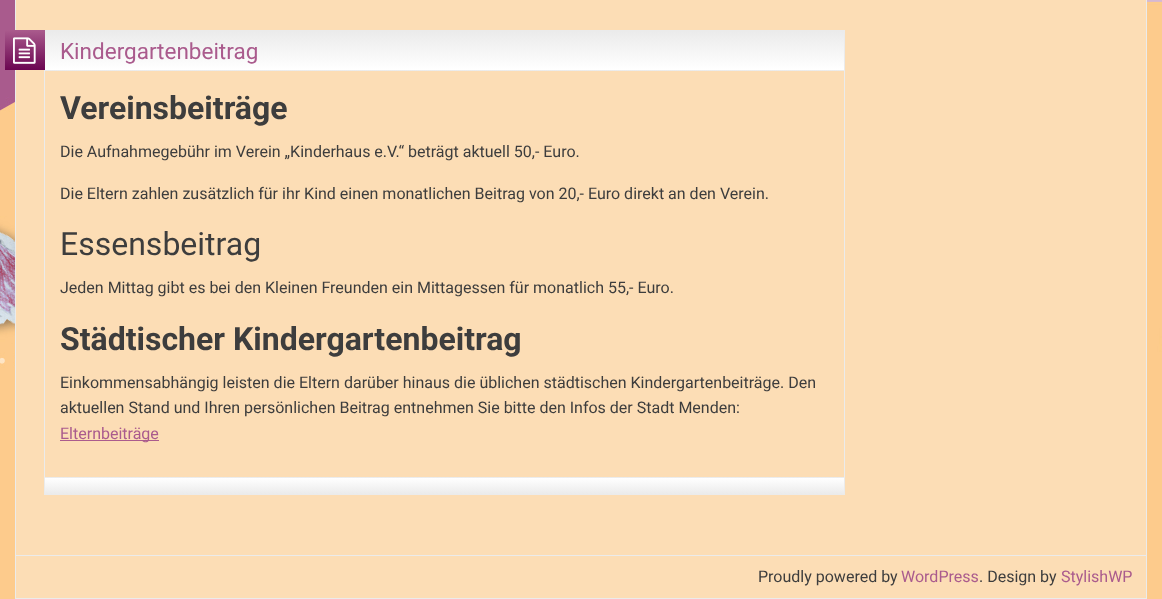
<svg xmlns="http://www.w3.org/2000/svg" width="1162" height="599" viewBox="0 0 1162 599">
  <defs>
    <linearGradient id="g1" gradientUnits="userSpaceOnUse" x1="5" y1="30" x2="5" y2="70"><stop offset="0" stop-color="#aa5b8d"/><stop offset="1" stop-color="#6b0551"/></linearGradient>
    <linearGradient id="g2" gradientUnits="userSpaceOnUse" x1="45" y1="31" x2="45" y2="70"><stop offset="0" stop-color="#ebebeb"/><stop offset="1" stop-color="#ffffff"/></linearGradient>
    <linearGradient id="g3" gradientUnits="userSpaceOnUse" x1="45" y1="70" x2="45" y2="109"><stop offset="0" stop-color="#ebebeb"/><stop offset="1" stop-color="#ffffff"/></linearGradient>
    <linearGradient id="g4" gradientUnits="userSpaceOnUse" x1="45" y1="462" x2="45" y2="478"><stop offset="0" stop-color="#ffffff"/><stop offset="1" stop-color="#ebebeb"/></linearGradient>
    <linearGradient id="g5" gradientUnits="userSpaceOnUse" x1="45" y1="478" x2="45" y2="494"><stop offset="0" stop-color="#ffffff"/><stop offset="1" stop-color="#ebebeb"/></linearGradient>
  </defs>
  <rect width="100%" height="100%" fill="#ffffff"/>
  <image x="0" y="0" width="1162" height="599" href="img1.png"/>
  <rect x="15.5" y="-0.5" width="1131" height="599" fill="#fcddb5" stroke="#ebebeb"/>
  <rect x="44.5" y="30.5" width="800" height="464" fill="none" stroke="#ebebeb"/>
  <rect x="5" y="30" width="40" height="40" fill="url(#g1)"/>
  <image x="13" y="37" width="23" height="27" href="img2.png"/>
  <rect x="45" y="31" width="799" height="39" fill="url(#g2)"/>
  <rect x="45" y="70" width="799" height="1" fill="url(#g3)"/>
  <text x="60" y="59" font-family="Roboto" font-size="22.5" fill="#aa5b8d">Kindergartenbeitrag</text>
  <text x="60" y="119" font-family="Roboto" font-size="32" font-weight="bold" fill="#3d3d3d">Vereinsbeiträge</text>
  <text x="60" y="157" font-family="Roboto" font-size="16" fill="#3d3d3d">Die Aufnahmegebühr im Verein „Kinderhaus e.V.“ beträgt aktuell 50,- Euro.</text>
  <text x="60" y="199" font-family="Roboto" font-size="16" fill="#3d3d3d">Die Eltern zahlen zusätzlich für ihr Kind einen monatlichen Beitrag von 20,- Euro direkt an den Verein.</text>
  <text x="60" y="255" font-family="Roboto" font-size="32" fill="#3d3d3d">Essensbeitrag</text>
  <text x="60" y="293" font-family="Roboto" font-size="16" fill="#3d3d3d">Jeden Mittag gibt es bei den Kleinen Freunden ein Mittagessen für monatlich 55,- Euro.</text>
  <text x="60" y="350" font-family="Roboto" font-size="32" font-weight="bold" fill="#3d3d3d">Städtischer Kindergartenbeitrag</text>
  <text x="60" y="388" font-family="Roboto" font-size="16" fill="#3d3d3d">Einkommensabhängig leisten die Eltern darüber hinaus die üblichen städtischen Kindergartenbeiträge. Den</text>
  <text x="60" y="413" font-family="Roboto" font-size="16" fill="#3d3d3d">aktuellen Stand und Ihren persönlichen Beitrag entnehmen Sie bitte den Infos der Stadt Menden:</text>
  <rect x="60" y="440" width="99" height="1" fill="#aa5b8d"/>
  <text x="60" y="439" font-family="Roboto" font-size="16" fill="#aa5b8d">Elternbeiträge</text>
  <rect x="45" y="477" width="799" height="1" fill="url(#g4)"/>
  <rect x="45" y="478" width="799" height="16" fill="url(#g5)"/>
  <rect x="16" y="555" width="1130" height="1" fill="#ebebeb"/>
  <text x="758" y="582" font-family="Roboto" font-size="16" fill="#3d3d3d">Proudly powered by</text>
  <text x="901" y="582" font-family="Roboto" font-size="16" fill="#aa5b8d">WordPress</text>
  <text x="979" y="582" font-family="Roboto" font-size="16" fill="#3d3d3d">. Design by</text>
  <text x="1061" y="582" font-family="Roboto" font-size="16" fill="#aa5b8d">StylishWP</text>
</svg>
